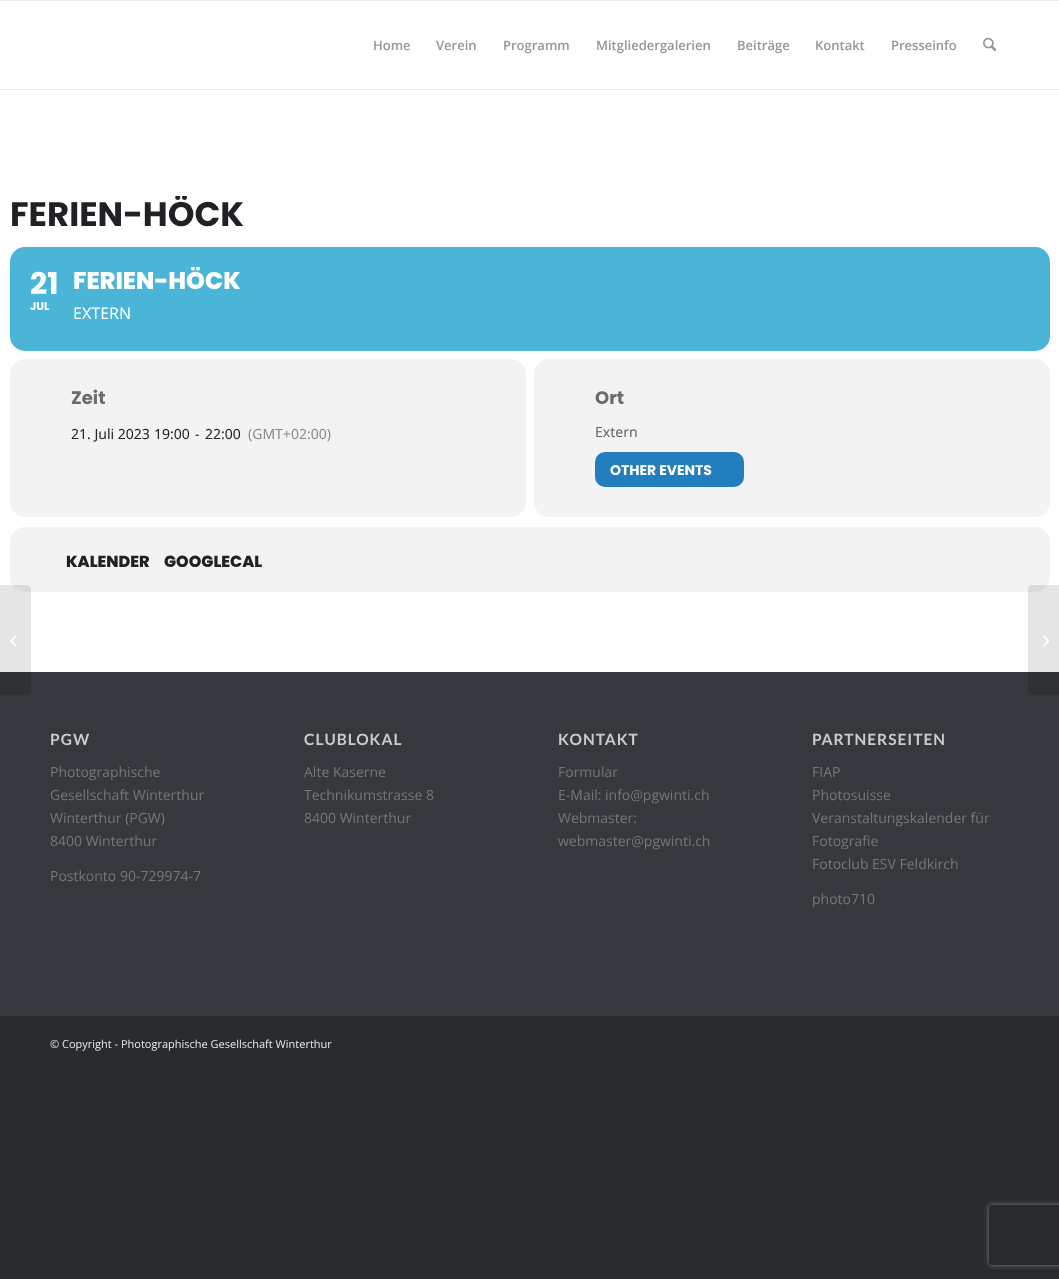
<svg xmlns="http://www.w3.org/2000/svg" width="1059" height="1279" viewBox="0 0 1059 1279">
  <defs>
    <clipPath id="clip1"><rect x="10" y="196" width="1040" height="406" rx="5"/></clipPath>
    <clipPath id="clip2"><rect x="73" y="267" width="942" height="64"/></clipPath>
    <clipPath id="clip3"><path d="M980 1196H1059V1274H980ZM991 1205H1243C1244 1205 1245 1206 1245 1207V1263C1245 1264 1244 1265 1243 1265H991C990 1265 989 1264 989 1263V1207C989 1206 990 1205 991 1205Z" clip-rule="evenodd"/></clipPath>
    <filter id="blur1" x="-50%" y="-200%" width="200%" height="500%"><feGaussianBlur stdDeviation="2.5"/></filter>
  </defs>
  <rect width="100%" height="100%" fill="#282b2e"/>
  <rect x="0" y="1" width="1059" height="671" fill="#ffffff"/>
  <rect x="0" y="0" width="1059" height="1" fill="#ebebeb"/>
  <rect x="0" y="89" width="1059" height="1" fill="#ebebeb"/>
  <text x="373" y="50" font-family="Open Sans" font-size="13" font-weight="600" fill="#969696">Home</text>
  <text x="436" y="50" font-family="Open Sans" font-size="13" font-weight="600" fill="#969696">Verein</text>
  <text x="503" y="50" font-family="Open Sans" font-size="13" font-weight="600" fill="#969696">Programm</text>
  <text x="596" y="50" font-family="Open Sans" font-size="13" font-weight="600" fill="#969696">Mitgliedergalerien</text>
  <text x="737" y="50" font-family="Open Sans" font-size="13" font-weight="600" fill="#969696">Beiträge</text>
  <text x="815" y="50" font-family="Open Sans" font-size="13" font-weight="600" fill="#969696">Kontakt</text>
  <text x="891" y="50" font-family="Open Sans" font-size="13" font-weight="600" fill="#969696">Presseinfo</text>
  <image x="983" y="37" width="13" height="15" href="img1.png"/>
  <g clip-path="url(#clip1)">
    <text x="10" y="226" font-family="Poppins" font-size="34" font-weight="bold" fill="#202124">FERIEN-HÖCK</text>
  </g>
  <rect x="10" y="247" width="1040" height="104" rx="15" fill="#4bb5d8"/>
  <text x="30" y="294" font-family="Poppins" font-size="30" font-weight="bold" fill="#ffffff">21</text>
  <text x="30" y="310" font-family="Poppins" font-size="11" font-weight="bold" fill="#ffffff">JUL</text>
  <g clip-path="url(#clip2)">
    <text x="73" y="289" font-family="Poppins" font-size="24" font-weight="800" fill="#ffffff">FERIEN-HÖCK</text>
  </g>
  <text x="73" y="319" font-family="Noto Sans" font-size="16" fill="#ffffff">EXTERN</text>
  <rect x="10" y="359" width="516" height="158" rx="15" fill="#f3f3f3"/>
  <text x="71" y="404" font-family="Poppins" font-size="18" font-weight="bold" fill="#6b6b6b">Zeit</text>
  <text x="71" y="439" font-family="Noto Sans" font-size="14" fill="#202124">21. Juli 2023</text>
  <text x="154" y="439" font-family="Noto Sans" font-size="14" fill="#202124">19:00</text>
  <text x="195" y="439" font-family="Noto Sans" font-size="14" fill="#202124">-</text>
  <text x="205" y="439" font-family="Noto Sans" font-size="14" fill="#202124">22:00</text>
  <text x="248" y="439" font-family="Noto Sans" font-size="14" fill="#8a8a8c">(GMT+02:00)</text>
  <rect x="534" y="359" width="516" height="158" rx="15" fill="#f3f3f3"/>
  <text x="595" y="404" font-family="Poppins" font-size="18" font-weight="bold" fill="#6b6b6b">Ort</text>
  <text x="595" y="437" font-family="Noto Sans" font-size="14" fill="#656565">Extern</text>
  <rect x="595" y="452" width="149" height="35" rx="10" fill="#237ebd"/>
  <text x="610" y="475" font-family="Poppins" font-size="14" font-weight="bold" fill="#ffffff">OTHER EVENTS</text>
  <rect x="10" y="527" width="1040" height="65" rx="15" fill="#f3f3f3"/>
  <text x="66" y="567" font-family="Poppins" font-size="16" font-weight="800" fill="#202124">KALENDER</text>
  <text x="164" y="567" font-family="Poppins" font-size="16" font-weight="800" fill="#202124">GOOGLECAL</text>
  <rect x="0" y="672" width="1059" height="344" fill="#35383c"/>
  <text x="50" y="745" font-family="Lato" font-size="15.5" font-weight="bold" letter-spacing="1" fill="#cccacc">PGW</text>
  <text x="50" y="777" font-family="Open Sans" font-size="14" fill="#777777">Photographische</text>
  <text x="50" y="800" font-family="Open Sans" font-size="14" fill="#777777">Gesellschaft Winterthur</text>
  <text x="50" y="823" font-family="Open Sans" font-size="14" fill="#777777">Winterthur (PGW)</text>
  <text x="50" y="846" font-family="Open Sans" font-size="14" fill="#777777">8400 Winterthur</text>
  <text x="50" y="881" font-family="Open Sans" font-size="14" fill="#777777">Postkonto 90-729974-7</text>
  <text x="304" y="745" font-family="Lato" font-size="15.5" font-weight="bold" letter-spacing="1" fill="#cccacc">CLUBLOKAL</text>
  <text x="304" y="777" font-family="Open Sans" font-size="14" fill="#777777">Alte Kaserne</text>
  <text x="304" y="800" font-family="Open Sans" font-size="14" fill="#777777">Technikumstrasse 8</text>
  <text x="304" y="823" font-family="Open Sans" font-size="14" fill="#777777">8400 Winterthur</text>
  <text x="558" y="745" font-family="Lato" font-size="15.5" font-weight="bold" letter-spacing="1" fill="#cccacc">KONTAKT</text>
  <text x="558" y="777" font-family="Open Sans" font-size="14" fill="#777777">Formular</text>
  <text x="558" y="800" font-family="Open Sans" font-size="14" fill="#777777">E-Mail: info@pgwinti.ch</text>
  <text x="558" y="823" font-family="Open Sans" font-size="14" fill="#777777">Webmaster:</text>
  <text x="558" y="846" font-family="Open Sans" font-size="14" fill="#777777">webmaster@pgwinti.ch</text>
  <text x="812" y="745" font-family="Lato" font-size="15.5" font-weight="bold" letter-spacing="1" fill="#cccacc">PARTNERSEITEN</text>
  <text x="812" y="777" font-family="Open Sans" font-size="14" fill="#777777">FIAP</text>
  <text x="812" y="800" font-family="Open Sans" font-size="14" fill="#777777">Photosuisse</text>
  <text x="812" y="823" font-family="Open Sans" font-size="14" fill="#777777">Veranstaltungskalender für</text>
  <text x="812" y="846" font-family="Open Sans" font-size="14" fill="#777777">Fotografie</text>
  <text x="812" y="869" font-family="Open Sans" font-size="14" fill="#777777">Fotoclub ESV Feldkirch</text>
  <text x="812" y="904" font-family="Open Sans" font-size="14" fill="#777777">photo710</text>
  <text x="50" y="1048" font-family="Open Sans" font-size="11" fill="#e8e8e8">© Copyright - Photographische Gesellschaft Winterthur</text>
  <path d="M0 585H27C29 585 31 587 31 589V691C31 693 29 695 27 695H0Z" fill="#000000" fill-opacity="0.1"/>
  <image x="10" y="635" width="6" height="12" href="img2.png"/>
  <path d="M1032 585H1059V695H1032C1030 695 1028 693 1028 691V589C1028 587 1030 585 1032 585Z" fill="#000000" fill-opacity="0.1"/>
  <image x="1043" y="635" width="6" height="12" href="img3.png"/>
  <g clip-path="url(#clip3)">
    <rect x="989" y="1205" width="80" height="60" rx="2" fill="#808080" filter="url(#blur1)"/>
  </g>
</svg>
